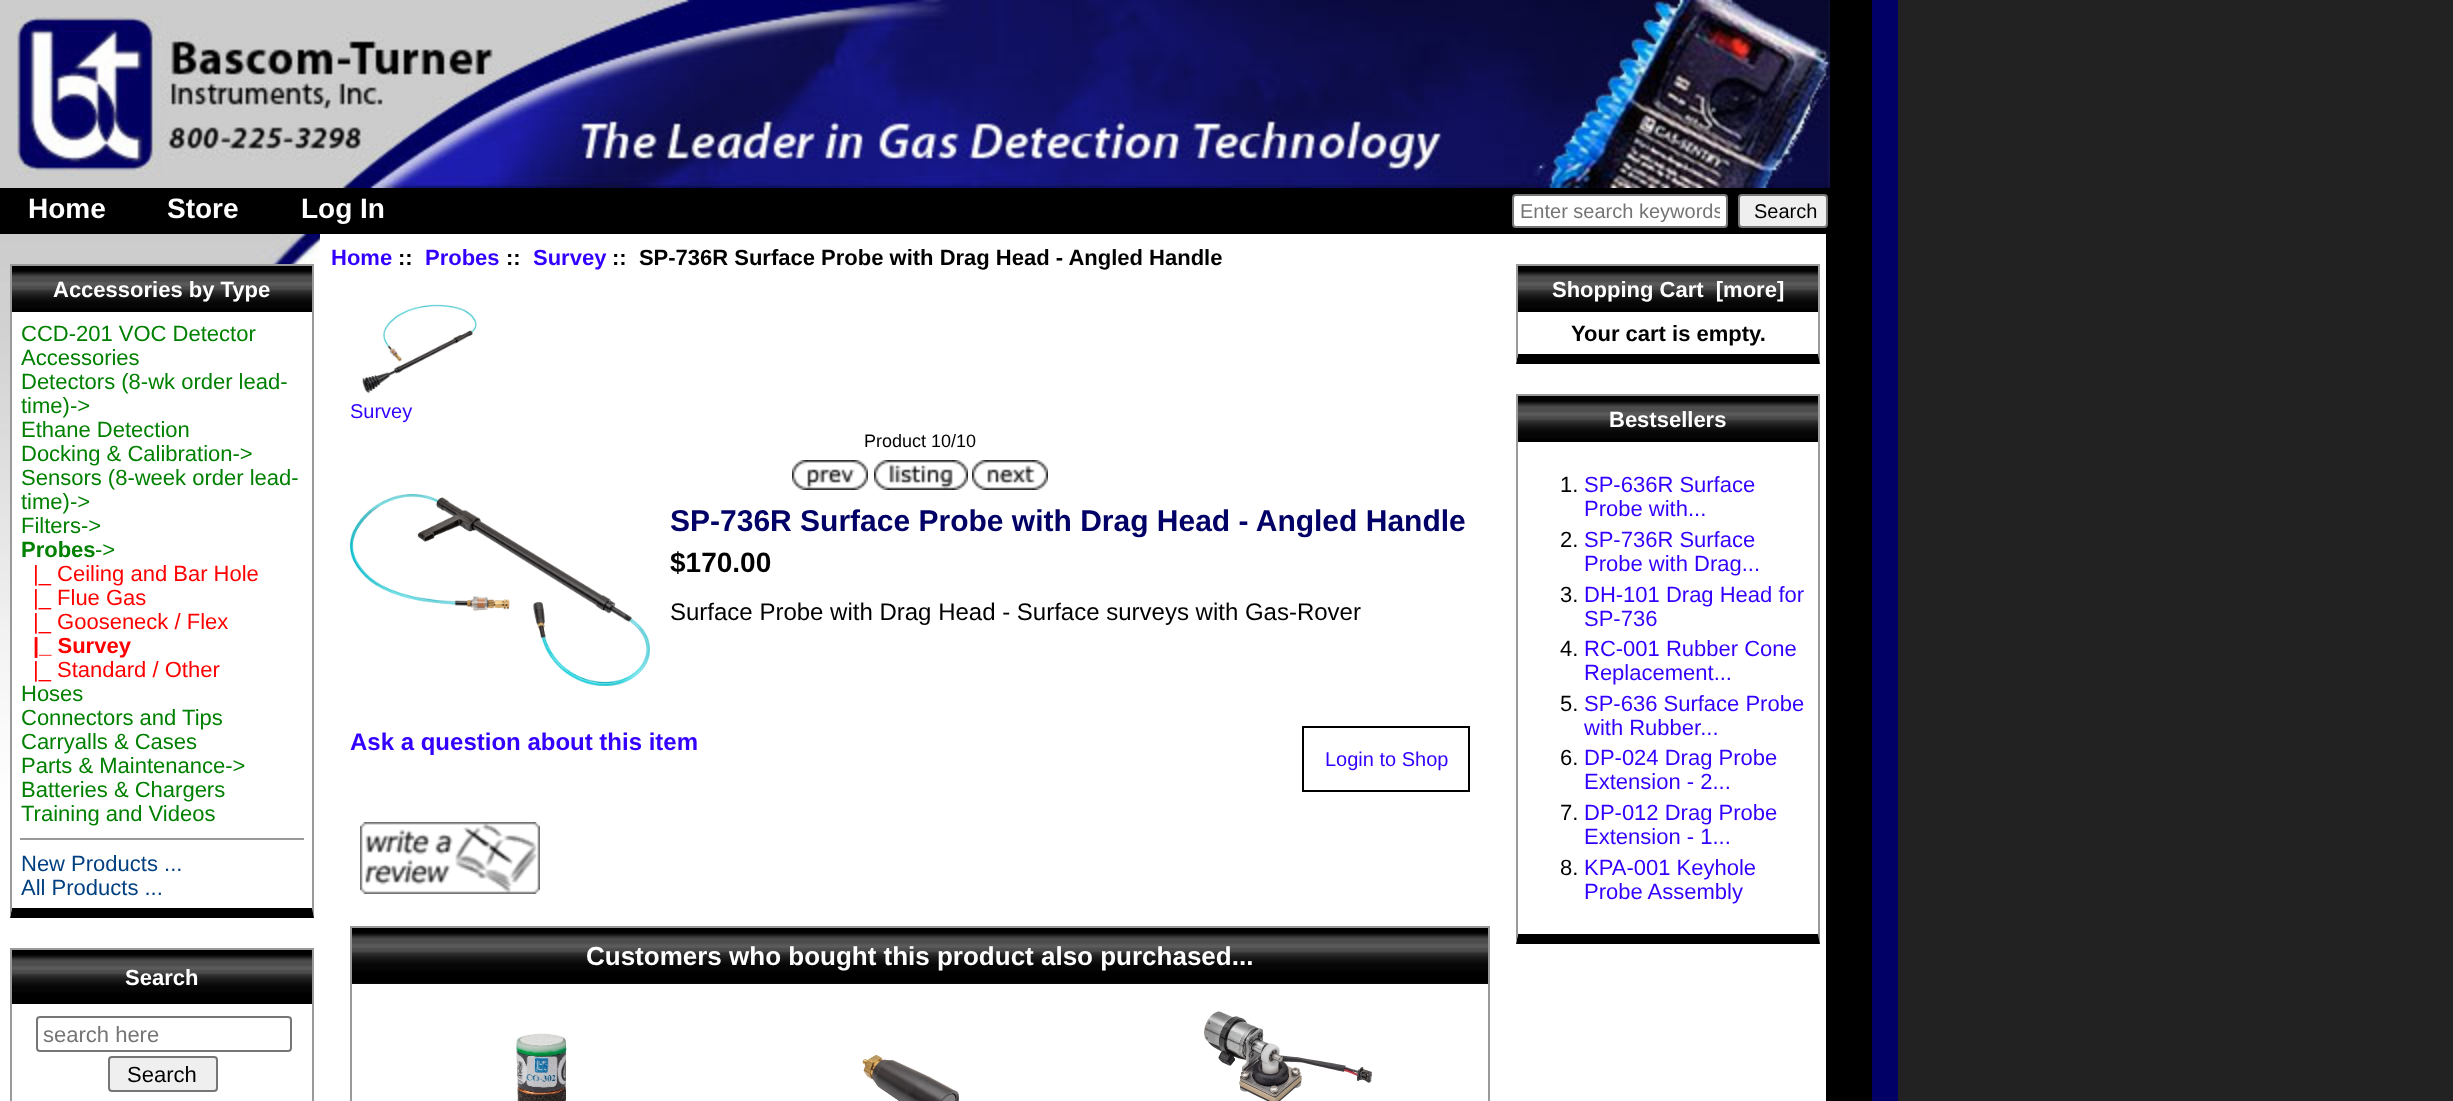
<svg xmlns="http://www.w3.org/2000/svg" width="2453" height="1101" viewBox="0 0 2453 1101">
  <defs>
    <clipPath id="clip1"><rect x="1520" y="200" width="200" height="22"/></clipPath>
  </defs>
  <rect width="100%" height="100%" fill="#222222"/>
  <rect x="0" y="188" width="1872" height="46" fill="#000000"/>
  <rect x="1872" y="0" width="26" height="1101" fill="#000066"/>
  <rect x="1830" y="0" width="42" height="188" fill="#000000"/>
  <image x="0" y="0" width="1830" height="188" href="img1.png"/>
  <image x="16" y="16" width="146" height="160" href="img2.png"/>
  <text x="28" y="218" font-family="Liberation Sans" font-size="28" font-weight="bold" fill="#ffffff">Home</text>
  <text x="167" y="218" font-family="Liberation Sans" font-size="28" font-weight="bold" fill="#ffffff">Store</text>
  <text x="301" y="218" font-family="Liberation Sans" font-size="28" font-weight="bold" fill="#ffffff">Log In</text>
  <rect x="1513" y="195" width="214" height="32" rx="3" fill="#ffffff" stroke="#767676" stroke-width="2"/>
  <g clip-path="url(#clip1)">
    <text x="1520" y="218" font-family="Liberation Sans" font-size="20" fill="#757575">Enter search keywords</text>
  </g>
  <rect x="1739" y="195" width="88" height="32" rx="3" fill="#efefef" stroke="#767676" stroke-width="2"/>
  <text x="1754" y="218" font-family="Liberation Sans" font-size="20" fill="#000000">Search</text>
  <rect x="0" y="234" width="1826" height="867" fill="#ffffff"/>
  <image x="0" y="234" width="326" height="591" href="img3.png"/>
  <rect x="1826" y="234" width="46" height="867" fill="#000000"/>
  <rect x="10" y="264" width="304" height="2" fill="#9a9a9a"/>
  <path d="M314 264V918L312 908V266Z" fill="#9a9a9a"/>
  <path d="M314 918H10L12 908H312Z" fill="#000000"/>
  <path d="M10 918V264L12 266V908Z" fill="#9a9a9a"/>
  <image x="12" y="266" width="300" height="46" href="img4.png"/>
  <text x="53" y="297" font-family="Liberation Sans" font-size="22" font-weight="bold" fill="#ffffff">Accessories by Type</text>
  <rect x="12" y="312" width="261" height="513" fill="#ffffff"/>
  <text x="21" y="341" font-family="Liberation Sans" font-size="22" fill="#008000">CCD-201 VOC Detector</text>
  <text x="21" y="365" font-family="Liberation Sans" font-size="22" fill="#008000">Accessories</text>
  <text x="21" y="389" font-family="Liberation Sans" font-size="22" fill="#008000">Detectors (8-wk order lead-</text>
  <text x="21" y="413" font-family="Liberation Sans" font-size="22" fill="#008000">time)-&gt;</text>
  <text x="21" y="437" font-family="Liberation Sans" font-size="22" fill="#008000">Ethane Detection</text>
  <text x="21" y="461" font-family="Liberation Sans" font-size="22" fill="#008000">Docking &amp; Calibration-&gt;</text>
  <text x="21" y="485" font-family="Liberation Sans" font-size="22" fill="#008000">Sensors (8-week order lead-</text>
  <text x="21" y="509" font-family="Liberation Sans" font-size="22" fill="#008000">time)-&gt;</text>
  <text x="21" y="533" font-family="Liberation Sans" font-size="22" fill="#008000">Filters-&gt;</text>
  <text x="21" y="557" font-family="Liberation Sans" font-size="22" font-weight="bold" fill="#008000">Probes</text>
  <text x="95" y="557" font-family="Liberation Sans" font-size="22" fill="#008000">-&gt;</text>
  <text x="33" y="581" font-family="Liberation Sans" font-size="22" fill="#ff0000">|_ Ceiling and Bar Hole</text>
  <text x="33" y="605" font-family="Liberation Sans" font-size="22" fill="#ff0000">|_ Flue Gas</text>
  <text x="33" y="629" font-family="Liberation Sans" font-size="22" fill="#ff0000">|_ Gooseneck / Flex</text>
  <text x="33" y="653" font-family="Liberation Sans" font-size="22" font-weight="bold" fill="#ff0000">|_ Survey</text>
  <text x="33" y="677" font-family="Liberation Sans" font-size="22" fill="#ff0000">|_ Standard / Other</text>
  <text x="21" y="701" font-family="Liberation Sans" font-size="22" fill="#008000">Hoses</text>
  <text x="21" y="725" font-family="Liberation Sans" font-size="22" fill="#008000">Connectors and Tips</text>
  <text x="21" y="749" font-family="Liberation Sans" font-size="22" fill="#008000">Carryalls &amp; Cases</text>
  <text x="21" y="773" font-family="Liberation Sans" font-size="22" fill="#008000">Parts &amp; Maintenance-&gt;</text>
  <text x="21" y="797" font-family="Liberation Sans" font-size="22" fill="#008000">Batteries &amp; Chargers</text>
  <text x="21" y="821" font-family="Liberation Sans" font-size="22" fill="#008000">Training and Videos</text>
  <rect x="20" y="838" width="284" height="2" fill="#9a9a9a"/>
  <text x="21" y="871" font-family="Liberation Sans" font-size="22" fill="#004080">New Products ...</text>
  <text x="21" y="895" font-family="Liberation Sans" font-size="22" fill="#004080">All Products ...</text>
  <rect x="10" y="948" width="304" height="2" fill="#9a9a9a"/>
  <path d="M314 948V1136L312 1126V950Z" fill="#9a9a9a"/>
  <path d="M10 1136V948L12 950V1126Z" fill="#9a9a9a"/>
  <image x="12" y="950" width="300" height="54" href="img5.png"/>
  <text x="125" y="985" font-family="Liberation Sans" font-size="22" font-weight="bold" fill="#ffffff">Search</text>
  <rect x="37" y="1017" width="254" height="34" rx="3" fill="none" stroke="#767676" stroke-width="2"/>
  <text x="43" y="1042" font-family="Liberation Sans" font-size="22" fill="#757575">search here</text>
  <rect x="109" y="1057" width="108" height="34" rx="3" fill="#efefef" stroke="#767676" stroke-width="2"/>
  <text x="127" y="1082" font-family="Liberation Sans" font-size="22" fill="#000000">Search</text>
  <rect x="320" y="234" width="6" height="16" fill="#ffffff"/>
  <text x="331" y="265" font-family="Liberation Sans" font-size="22" font-weight="bold" fill="#3300ff">Home</text>
  <text x="398" y="265" font-family="Liberation Sans" font-size="22" font-weight="bold" fill="#000000">::</text>
  <text x="425" y="265" font-family="Liberation Sans" font-size="22" font-weight="bold" fill="#3300ff">Probes</text>
  <text x="506" y="265" font-family="Liberation Sans" font-size="22" font-weight="bold" fill="#000000">::</text>
  <text x="533" y="265" font-family="Liberation Sans" font-size="22" font-weight="bold" fill="#3300ff">Survey</text>
  <text x="612" y="265" font-family="Liberation Sans" font-size="22" font-weight="bold" fill="#000000" xml:space="preserve">::  SP-736R Surface Probe with Drag Head - Angled Handle</text>
  <image x="362" y="304" width="115" height="90" href="img6.png"/>
  <text x="350" y="418" font-family="Liberation Sans" font-size="20" fill="#3300ff">Survey</text>
  <text x="864" y="447" font-family="Liberation Sans" font-size="18" fill="#000000">Product 10/10</text>
  <image x="792" y="460" width="76" height="30" href="img7.png"/>
  <image x="874" y="460" width="94" height="30" href="img8.png"/>
  <image x="972" y="460" width="76" height="30" href="img9.png"/>
  <image x="350" y="494" width="300" height="192" href="img10.png"/>
  <text x="670" y="531" font-family="Liberation Sans" font-size="30" font-weight="bold" fill="#000066">SP-736R Surface Probe with Drag Head - Angled Handle</text>
  <text x="670" y="572" font-family="Liberation Sans" font-size="28" font-weight="bold" fill="#000000">$170.00</text>
  <text x="670" y="620" font-family="Liberation Sans" font-size="24" fill="#000000">Surface Probe with Drag Head - Surface surveys with Gas-Rover</text>
  <text x="350" y="750" font-family="Liberation Sans" font-size="24" font-weight="bold" fill="#3300ff">Ask a question about this item</text>
  <rect x="1303" y="727" width="166" height="64" fill="none" stroke="#000000" stroke-width="2"/>
  <text x="1325" y="766" font-family="Liberation Sans" font-size="20" fill="#3300ff">Login to Shop</text>
  <image x="360" y="822" width="180" height="72" href="img11.png"/>
  <rect x="351" y="927" width="1138" height="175" fill="none" stroke="#9a9a9a" stroke-width="2"/>
  <image x="352" y="928" width="1136" height="56" href="img12.png"/>
  <text x="586" y="965" font-family="Liberation Sans" font-size="26" font-weight="bold" fill="#ffffff">Customers who bought this product also purchased...</text>
  <image x="514" y="1033" width="54" height="68" href="img13.png"/>
  <image x="862" y="1052" width="97" height="49" href="img14.png"/>
  <image x="1204" y="1011" width="168" height="90" href="img15.png"/>
  <rect x="1516" y="264" width="304" height="2" fill="#9a9a9a"/>
  <path d="M1820 264V364L1818 354V266Z" fill="#9a9a9a"/>
  <path d="M1820 364H1516L1518 354H1818Z" fill="#000000"/>
  <path d="M1516 364V264L1518 266V354Z" fill="#9a9a9a"/>
  <image x="1518" y="266" width="300" height="46" href="img4.png"/>
  <text x="1552" y="297" font-family="Liberation Sans" font-size="22" font-weight="bold" fill="#ffffff" xml:space="preserve">Shopping Cart  [more]</text>
  <text x="1571" y="341" font-family="Liberation Sans" font-size="22" font-weight="bold" fill="#000000">Your cart is empty.</text>
  <rect x="1516" y="394" width="304" height="2" fill="#9a9a9a"/>
  <path d="M1820 394V944L1818 934V396Z" fill="#9a9a9a"/>
  <path d="M1820 944H1516L1518 934H1818Z" fill="#000000"/>
  <path d="M1516 944V394L1518 396V934Z" fill="#9a9a9a"/>
  <image x="1518" y="396" width="300" height="46" href="img4.png"/>
  <text x="1609" y="427" font-family="Liberation Sans" font-size="22" font-weight="bold" fill="#ffffff">Bestsellers</text>
  <text x="1560" y="492" font-family="Liberation Sans" font-size="22" fill="#000000">1.</text>
  <text x="1584" y="492" font-family="Liberation Sans" font-size="22" fill="#3300ff">SP-636R Surface</text>
  <text x="1584" y="516" font-family="Liberation Sans" font-size="22" fill="#3300ff">Probe with...</text>
  <text x="1560" y="547" font-family="Liberation Sans" font-size="22" fill="#000000">2.</text>
  <text x="1584" y="547" font-family="Liberation Sans" font-size="22" fill="#3300ff">SP-736R Surface</text>
  <text x="1584" y="571" font-family="Liberation Sans" font-size="22" fill="#3300ff">Probe with Drag...</text>
  <text x="1560" y="602" font-family="Liberation Sans" font-size="22" fill="#000000">3.</text>
  <text x="1584" y="602" font-family="Liberation Sans" font-size="22" fill="#3300ff">DH-101 Drag Head for</text>
  <text x="1584" y="626" font-family="Liberation Sans" font-size="22" fill="#3300ff">SP-736</text>
  <text x="1560" y="656" font-family="Liberation Sans" font-size="22" fill="#000000">4.</text>
  <text x="1584" y="656" font-family="Liberation Sans" font-size="22" fill="#3300ff">RC-001 Rubber Cone</text>
  <text x="1584" y="680" font-family="Liberation Sans" font-size="22" fill="#3300ff">Replacement...</text>
  <text x="1560" y="711" font-family="Liberation Sans" font-size="22" fill="#000000">5.</text>
  <text x="1584" y="711" font-family="Liberation Sans" font-size="22" fill="#3300ff">SP-636 Surface Probe</text>
  <text x="1584" y="735" font-family="Liberation Sans" font-size="22" fill="#3300ff">with Rubber...</text>
  <text x="1560" y="765" font-family="Liberation Sans" font-size="22" fill="#000000">6.</text>
  <text x="1584" y="765" font-family="Liberation Sans" font-size="22" fill="#3300ff">DP-024 Drag Probe</text>
  <text x="1584" y="789" font-family="Liberation Sans" font-size="22" fill="#3300ff">Extension - 2...</text>
  <text x="1560" y="820" font-family="Liberation Sans" font-size="22" fill="#000000">7.</text>
  <text x="1584" y="820" font-family="Liberation Sans" font-size="22" fill="#3300ff">DP-012 Drag Probe</text>
  <text x="1584" y="844" font-family="Liberation Sans" font-size="22" fill="#3300ff">Extension - 1...</text>
  <text x="1560" y="875" font-family="Liberation Sans" font-size="22" fill="#000000">8.</text>
  <text x="1584" y="875" font-family="Liberation Sans" font-size="22" fill="#3300ff">KPA-001 Keyhole</text>
  <text x="1584" y="899" font-family="Liberation Sans" font-size="22" fill="#3300ff">Probe Assembly</text>
</svg>
